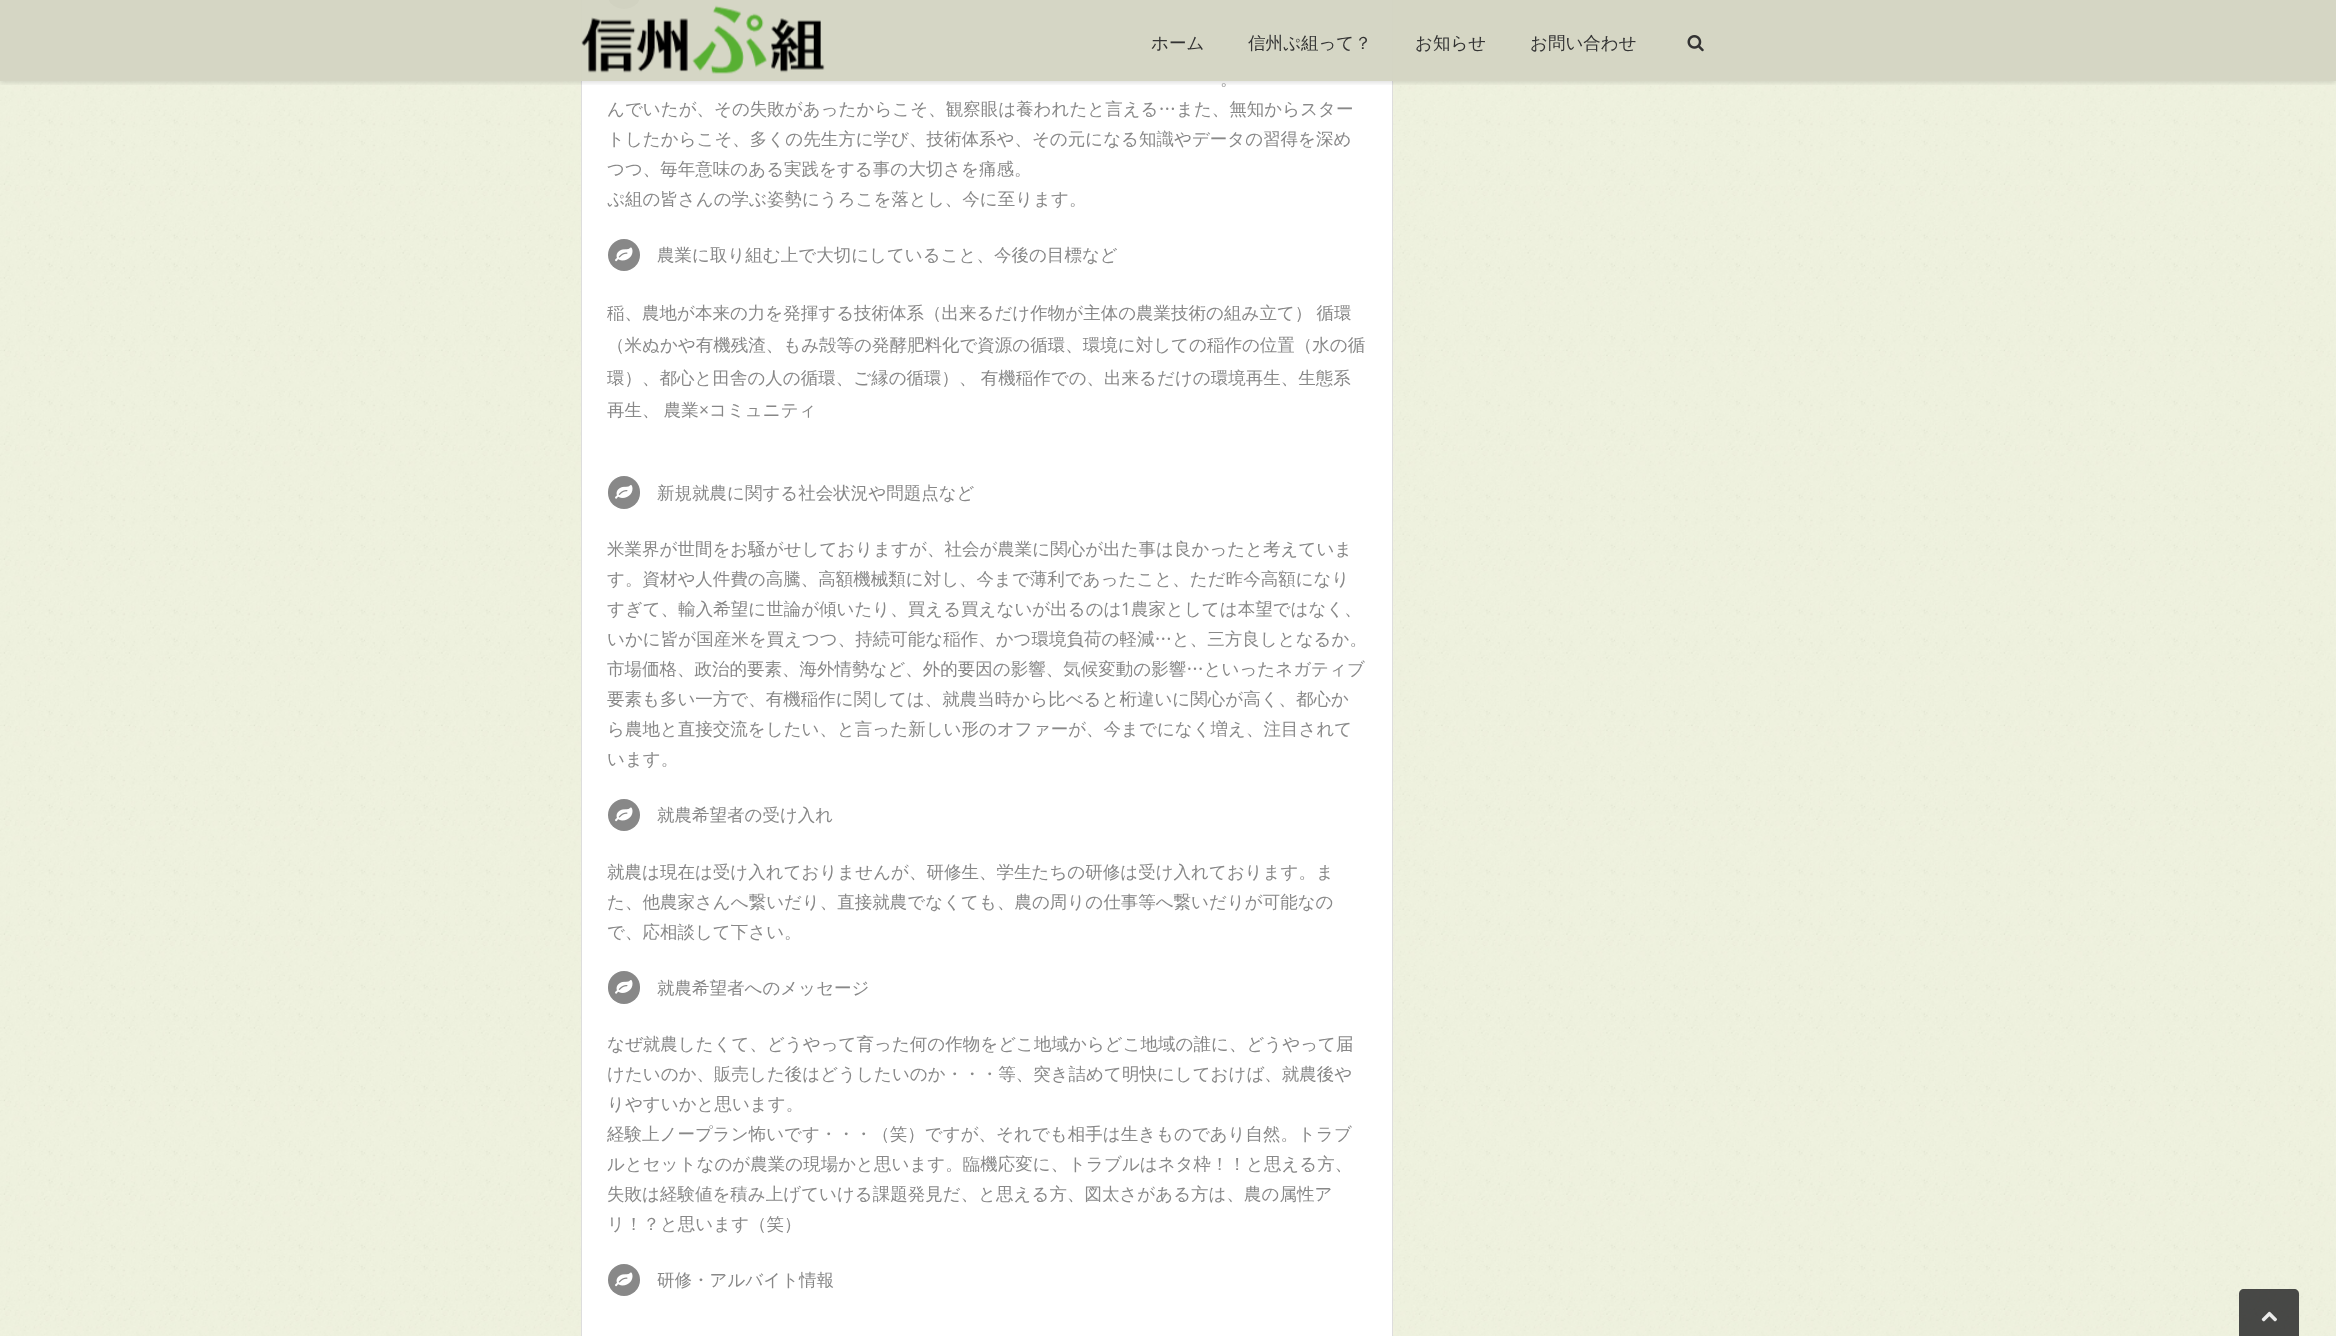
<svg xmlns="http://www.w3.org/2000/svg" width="2336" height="1336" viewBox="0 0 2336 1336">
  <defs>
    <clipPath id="clip1"><rect x="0" y="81" width="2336" height="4"/></clipPath>
    <filter id="blur1" x="-50%" y="-200%" width="200%" height="500%"><feGaussianBlur stdDeviation="2"/></filter>
  </defs>
  <rect width="100%" height="100%" fill="#ffffff"/>
  <image x="0" y="0" width="2336" height="1336" href="img3.png"/>
  <rect x="581.5" y="-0.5" width="811" height="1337" fill="#ffffff" stroke="#dddddd"/>
  <rect x="608" y="-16" width="32" height="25" rx="16" fill="#888888"/>
  <g clip-path="url(#clip1)">
    <rect x="0" y="1" width="2336" height="82" fill="#000000" fill-opacity="0.12" filter="url(#blur1)"/>
  </g>
  <rect x="0" y="0" width="2336" height="81" fill="#d4d5c3" fill-opacity="0.97"/>
  <image x="581" y="5" width="244" height="69" href="img1.png"/>
  <text x="1151" y="49" font-family="WenQuanYi Zen Hei" font-size="17.5" font-weight="500" fill="#333333">ホーム</text>
  <text x="1248" y="49" font-family="WenQuanYi Zen Hei" font-size="17.5" font-weight="500" fill="#333333">信州ぷ組って？</text>
  <text x="1415" y="49" font-family="WenQuanYi Zen Hei" font-size="17.5" font-weight="500" fill="#333333">お知らせ</text>
  <text x="1530" y="49" font-family="WenQuanYi Zen Hei" font-size="17.5" font-weight="500" fill="#333333">お問い合わせ</text>
  <image x="1687" y="35" width="17" height="17" href="img2.png"/>
  <text x="1220" y="85" font-family="WenQuanYi Zen Hei" font-size="17.5" font-weight="500" fill="#888888">。</text>
  <text x="607" y="115" font-family="WenQuanYi Zen Hei" font-size="17.5" font-weight="500" fill="#888888">んでいたが、その失敗があったからこそ、観察眼は養われたと言える…また、無知からスター</text>
  <text x="607" y="145" font-family="WenQuanYi Zen Hei" font-size="17.5" font-weight="500" fill="#888888">トしたからこそ、多くの先生方に学び、技術体系や、その元になる知識やデータの習得を深め</text>
  <text x="607" y="175" font-family="WenQuanYi Zen Hei" font-size="17.5" font-weight="500" fill="#888888">つつ、毎年意味のある実践をする事の大切さを痛感。</text>
  <text x="607" y="205" font-family="WenQuanYi Zen Hei" font-size="17.5" font-weight="500" fill="#888888">ぷ組の皆さんの学ぶ姿勢にうろこを落とし、今に至ります。</text>
  <circle cx="624" cy="255" r="16" fill="#888888"/>
  <image x="615" y="247" width="18" height="15" href="img4.png"/>
  <text x="657" y="261" font-family="WenQuanYi Zen Hei" font-size="17.5" font-weight="500" fill="#888888">農業に取り組む上で大切にしていること、今後の目標など</text>
  <text x="607" y="319" word-spacing="-1" font-family="WenQuanYi Zen Hei" font-size="17.5" font-weight="500" fill="#888888">稲、農地が本来の力を発揮する技術体系（出来るだけ作物が主体の農業技術の組み立て） 循環</text>
  <text x="607" y="351" font-family="WenQuanYi Zen Hei" font-size="17.5" font-weight="500" fill="#888888">（米ぬかや有機残渣、もみ殻等の発酵肥料化で資源の循環、環境に対しての稲作の位置（水の循</text>
  <text x="607" y="384" word-spacing="-1" font-family="WenQuanYi Zen Hei" font-size="17.5" font-weight="500" fill="#888888">環）、都心と田舎の人の循環、ご縁の循環）、 有機稲作での、出来るだけの環境再生、生態系</text>
  <text x="607" y="416" word-spacing="-1" font-family="WenQuanYi Zen Hei" font-size="17.5" font-weight="500" fill="#888888">再生、 農業</text>
  <text x="699" y="416" font-family="Open Sans" font-size="17.5" fill="#888888">×</text>
  <text x="709" y="416" font-family="WenQuanYi Zen Hei" font-size="17.5" font-weight="500" fill="#888888">コミュニティ</text>
  <rect x="608" y="476" width="32" height="33" rx="16" fill="#888888"/>
  <image x="615" y="485" width="18" height="14" href="img5.png"/>
  <text x="657" y="499" font-family="WenQuanYi Zen Hei" font-size="17.5" font-weight="500" fill="#888888">新規就農に関する社会状況や問題点など</text>
  <text x="607" y="555" font-family="WenQuanYi Zen Hei" font-size="17.5" font-weight="500" fill="#888888">米業界が世間をお騒がせしておりますが、社会が農業に関心が出た事は良かったと考えていま</text>
  <text x="607" y="585" font-family="WenQuanYi Zen Hei" font-size="17.5" font-weight="500" fill="#888888">す。資材や人件費の高騰、高額機械類に対し、今まで薄利であったこと、ただ昨今高額になり</text>
  <text x="607" y="615" font-family="WenQuanYi Zen Hei" font-size="17.5" font-weight="500" fill="#888888">すぎて、輸入希望に世論が傾いたり、買える買えないが出るのは</text>
  <text x="1121" y="615" font-family="Open Sans" font-size="17.5" fill="#888888">1</text>
  <text x="1131" y="615" font-family="WenQuanYi Zen Hei" font-size="17.5" font-weight="500" fill="#888888">農家としては本望ではなく、</text>
  <text x="607" y="645" font-family="WenQuanYi Zen Hei" font-size="17.5" font-weight="500" fill="#888888">いかに皆が国産米を買えつつ、持続可能な稲作、かつ環境負荷の軽減…と、三方良しとなるか。</text>
  <text x="607" y="675" font-family="WenQuanYi Zen Hei" font-size="17.5" font-weight="500" fill="#888888">市場価格、政治的要素、海外情勢など、外的要因の影響、気候変動の影響…といったネガティブ</text>
  <text x="607" y="705" font-family="WenQuanYi Zen Hei" font-size="17.5" font-weight="500" fill="#888888">要素も多い一方で、有機稲作に関しては、就農当時から比べると桁違いに関心が高く、都心か</text>
  <text x="607" y="735" font-family="WenQuanYi Zen Hei" font-size="17.5" font-weight="500" fill="#888888">ら農地と直接交流をしたい、と言った新しい形のオファーが、今までになく増え、注目されて</text>
  <text x="607" y="765" font-family="WenQuanYi Zen Hei" font-size="17.5" font-weight="500" fill="#888888">います。</text>
  <circle cx="624" cy="815" r="16" fill="#888888"/>
  <image x="615" y="807" width="18" height="15" href="img4.png"/>
  <text x="657" y="821" font-family="WenQuanYi Zen Hei" font-size="17.5" font-weight="500" fill="#888888">就農希望者の受け入れ</text>
  <text x="607" y="878" font-family="WenQuanYi Zen Hei" font-size="17.5" font-weight="500" fill="#888888">就農は現在は受け入れておりませんが、研修生、学生たちの研修は受け入れております。ま</text>
  <text x="607" y="908" font-family="WenQuanYi Zen Hei" font-size="17.5" font-weight="500" fill="#888888">た、他農家さんへ繋いだり、直接就農でなくても、農の周りの仕事等へ繋いだりが可能なの</text>
  <text x="607" y="938" font-family="WenQuanYi Zen Hei" font-size="17.5" font-weight="500" fill="#888888">で、応相談して下さい。</text>
  <rect x="608" y="971" width="32" height="33" rx="16" fill="#888888"/>
  <image x="615" y="980" width="18" height="14" href="img5.png"/>
  <text x="657" y="994" font-family="WenQuanYi Zen Hei" font-size="17.5" font-weight="500" fill="#888888">就農希望者へのメッセージ</text>
  <text x="607" y="1050" font-family="WenQuanYi Zen Hei" font-size="17.5" font-weight="500" fill="#888888">なぜ就農したくて、どうやって育った何の作物をどこ地域からどこ地域の誰に、どうやって届</text>
  <text x="607" y="1080" font-family="WenQuanYi Zen Hei" font-size="17.5" font-weight="500" fill="#888888">けたいのか、販売した後はどうしたいのか・・・等、突き詰めて明快にしておけば、就農後や</text>
  <text x="607" y="1110" font-family="WenQuanYi Zen Hei" font-size="17.5" font-weight="500" fill="#888888">りやすいかと思います。</text>
  <text x="607" y="1140" font-family="WenQuanYi Zen Hei" font-size="17.5" font-weight="500" fill="#888888">経験上ノープラン怖いです・・・（笑）ですが、それでも相手は生きものであり自然。トラブ</text>
  <text x="607" y="1170" font-family="WenQuanYi Zen Hei" font-size="17.5" font-weight="500" fill="#888888">ルとセットなのが農業の現場かと思います。臨機応変に、トラブルはネタ枠！！と思える方、</text>
  <text x="607" y="1200" font-family="WenQuanYi Zen Hei" font-size="17.5" font-weight="500" fill="#888888">失敗は経験値を積み上げていける課題発見だ、と思える方、図太さがある方は、農の属性ア</text>
  <text x="607" y="1230" font-family="WenQuanYi Zen Hei" font-size="17.5" font-weight="500" fill="#888888">リ！？と思います（笑）</text>
  <circle cx="624" cy="1280" r="16" fill="#888888"/>
  <image x="615" y="1272" width="18" height="15" href="img4.png"/>
  <text x="657" y="1286" font-family="WenQuanYi Zen Hei" font-size="17.5" font-weight="500" fill="#888888">研修・アルバイト情報</text>
  <path d="M2244 1289H2294C2297 1289 2299 1291 2299 1294V1336H2239V1294C2239 1291 2241 1289 2244 1289Z" fill="#333333" fill-opacity="0.89"/>
  <image x="2261" y="1311" width="16" height="11" href="img6.png"/>
</svg>
